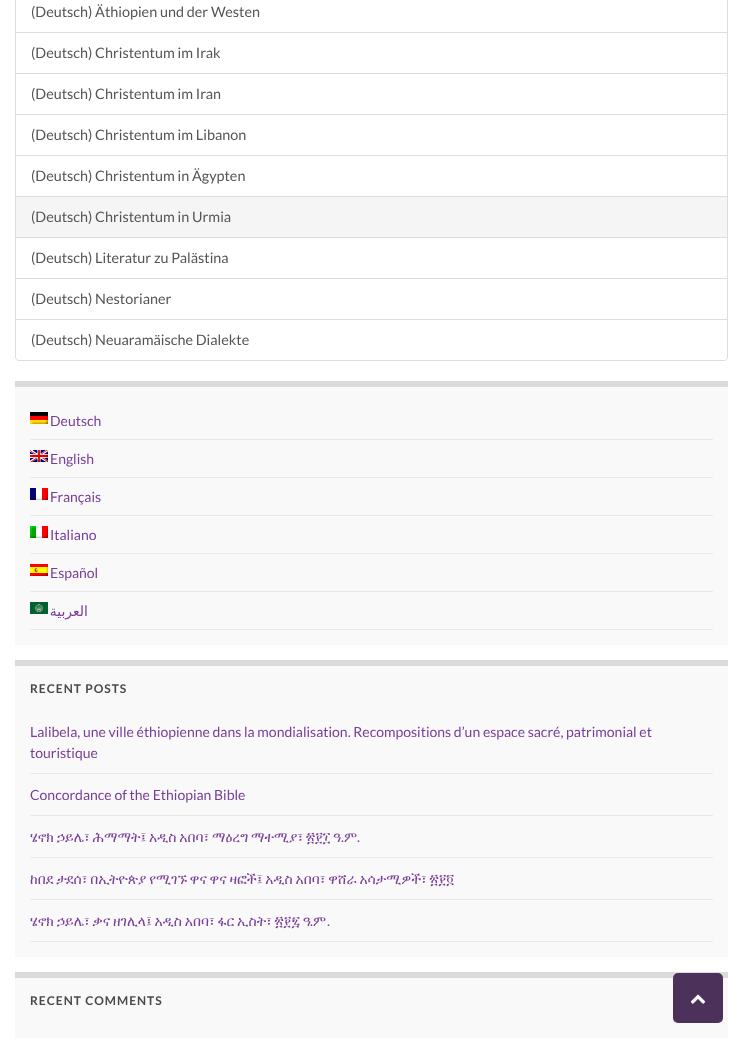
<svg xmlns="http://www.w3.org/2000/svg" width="743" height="1043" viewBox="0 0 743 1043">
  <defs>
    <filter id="blur1" x="-50%" y="-200%" width="200%" height="500%"><feGaussianBlur stdDeviation="1"/></filter>
  </defs>
  <rect width="100%" height="100%" fill="#ffffff"/>
  <rect x="15.5" y="-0.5" width="712" height="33" fill="none" stroke="#dddddd"/>
  <text x="31" y="17" font-family="Lato" font-size="14.4" fill="#555555">(Deutsch) Äthiopien und der Westen</text>
  <rect x="15.5" y="32.5" width="712" height="41" fill="none" stroke="#dddddd"/>
  <text x="31" y="58" font-family="Lato" font-size="14.4" fill="#555555">(Deutsch) Christentum im Irak</text>
  <rect x="15.5" y="73.5" width="712" height="41" fill="none" stroke="#dddddd"/>
  <text x="31" y="99" font-family="Lato" font-size="14.4" fill="#555555">(Deutsch) Christentum im Iran</text>
  <rect x="15.5" y="114.5" width="712" height="41" fill="none" stroke="#dddddd"/>
  <text x="31" y="140" font-family="Lato" font-size="14.4" fill="#555555">(Deutsch) Christentum im Libanon</text>
  <rect x="15.5" y="155.5" width="712" height="41" fill="none" stroke="#dddddd"/>
  <text x="31" y="181" font-family="Lato" font-size="14.4" fill="#555555">(Deutsch) Christentum in Ägypten</text>
  <rect x="15.5" y="237.5" width="712" height="41" fill="none" stroke="#dddddd"/>
  <rect x="15.5" y="196.5" width="712" height="41" fill="#f5f5f5" stroke="#dddddd"/>
  <text x="31" y="222" font-family="Lato" font-size="14.4" fill="#555555">(Deutsch) Christentum in Urmia</text>
  <text x="31" y="263" font-family="Lato" font-size="14.4" fill="#555555">(Deutsch) Literatur zu Palästina</text>
  <rect x="15.5" y="278.5" width="712" height="41" fill="none" stroke="#dddddd"/>
  <text x="31" y="304" font-family="Lato" font-size="14.4" fill="#555555">(Deutsch) Nestorianer</text>
  <path d="M15.5 319.5H727.5V357C727.5 359 726 360.5 724 360.5H19C17 360.5 15.5 359 15.5 357Z" fill="#ffffff" stroke="#dddddd"/>
  <text x="31" y="345" font-family="Lato" font-size="14.4" fill="#555555">(Deutsch) Neuaramäische Dialekte</text>
  <rect x="15" y="387" width="713" height="258" fill="#f9f9f9"/>
  <rect x="15" y="381" width="713" height="6" fill="#dbdbdb"/>
  <rect x="30" y="439" width="683" height="1" fill="#e9e9e9"/>
  <image x="30" y="412" width="18" height="12" href="img1.png"/>
  <text x="50" y="426" font-family="Lato" font-size="14" fill="#783d98">Deutsch</text>
  <rect x="30" y="477" width="683" height="1" fill="#e9e9e9"/>
  <image x="30" y="450" width="18" height="12" href="img2.png"/>
  <text x="50" y="464" font-family="Lato" font-size="14" fill="#783d98">English</text>
  <rect x="30" y="515" width="683" height="1" fill="#e9e9e9"/>
  <image x="30" y="488" width="18" height="12" href="img3.png"/>
  <text x="50" y="502" font-family="Lato" font-size="14" fill="#783d98">Français</text>
  <rect x="30" y="553" width="683" height="1" fill="#e9e9e9"/>
  <image x="30" y="526" width="18" height="12" href="img4.png"/>
  <text x="50" y="540" font-family="Lato" font-size="14" fill="#783d98">Italiano</text>
  <rect x="30" y="591" width="683" height="1" fill="#e9e9e9"/>
  <image x="30" y="564" width="18" height="12" href="img5.png"/>
  <text x="50" y="578" font-family="Lato" font-size="14" fill="#783d98">Español</text>
  <rect x="30" y="629" width="683" height="1" fill="#e9e9e9"/>
  <image x="30" y="602" width="18" height="12" href="img6.png"/>
  <text x="88" y="616" font-family="DejaVu Sans" font-size="14" direction="rtl" fill="#783d98">العربية</text>
  <rect x="15" y="666" width="713" height="291" fill="#f9f9f9"/>
  <rect x="15" y="660" width="713" height="6" fill="#dbdbdb"/>
  <text x="30" y="693" font-family="Lato" font-size="12" font-weight="bold" letter-spacing="1" fill="#4a474b">RECENT POSTS</text>
  <rect x="30" y="773" width="683" height="1" fill="#e9e9e9"/>
  <text x="30" y="737" font-family="Lato" font-size="14" fill="#783d98">Lalibela, une ville éthiopienne dans la mondialisation. Recompositions d’un espace sacré, patrimonial et</text>
  <text x="30" y="758" font-family="Lato" font-size="14" fill="#783d98">touristique</text>
  <rect x="30" y="815" width="683" height="1" fill="#e9e9e9"/>
  <text x="30" y="800" font-family="Lato" font-size="14" fill="#783d98">Concordance of the Ethiopian Bible</text>
  <rect x="30" y="857" width="683" height="1" fill="#e9e9e9"/>
  <text x="30" y="842" word-spacing="-0.75" font-family="FreeSerif" font-size="14" fill="#783d98">ሄኖክ ኃይሌ፣ ሕማማት፤ አዲስ አበባ፣ ማዕረግ ማተሚያ፣ ፳፻፲ ዓ</text>
  <text x="341" y="842" font-family="Lato" font-size="14" fill="#783d98">.</text>
  <text x="344" y="842" font-family="FreeSerif" font-size="14" fill="#783d98">ም</text>
  <text x="357" y="842" font-family="Lato" font-size="14" fill="#783d98">.</text>
  <rect x="30" y="899" width="683" height="1" fill="#e9e9e9"/>
  <text x="30" y="884" word-spacing="-0.75" font-family="FreeSerif" font-size="14" fill="#783d98">ከበደ ታደሰ፣ በኢትዮጵያ የሚገኙ ዋና ዋና ዛፎች፤ አዲስ አበባ፣ ዋሸራ አሳታሚዎች፣ ፳፻፬</text>
  <rect x="30" y="941" width="683" height="1" fill="#e9e9e9"/>
  <text x="30" y="926" word-spacing="-0.75" font-family="FreeSerif" font-size="14" fill="#783d98">ሄኖክ ኃይሌ፣ ቃና ዘገሊላ፤ አዲስ አበባ፣ ፋር ኢስት፣ ፳፻፯ ዓ</text>
  <text x="310" y="926" font-family="Lato" font-size="14" fill="#783d98">.</text>
  <text x="313" y="926" font-family="FreeSerif" font-size="14" fill="#783d98">ም</text>
  <text x="327" y="926" font-family="Lato" font-size="14" fill="#783d98">.</text>
  <rect x="15" y="978" width="713" height="60" fill="#f9f9f9"/>
  <rect x="15" y="972" width="713" height="6" fill="#dbdbdb"/>
  <text x="30" y="1005" font-family="Lato" font-size="12" font-weight="bold" letter-spacing="1" fill="#4a474b">RECENT COMMENTS</text>
  <rect x="673" y="973" width="50" height="50" rx="5" fill="#ffffff" fill-opacity="0.3" filter="url(#blur1)"/>
  <rect x="673" y="973" width="50" height="50" rx="5" fill="#4c315a"/>
  <image x="690" y="994" width="16" height="10" href="img7.png"/>
</svg>
